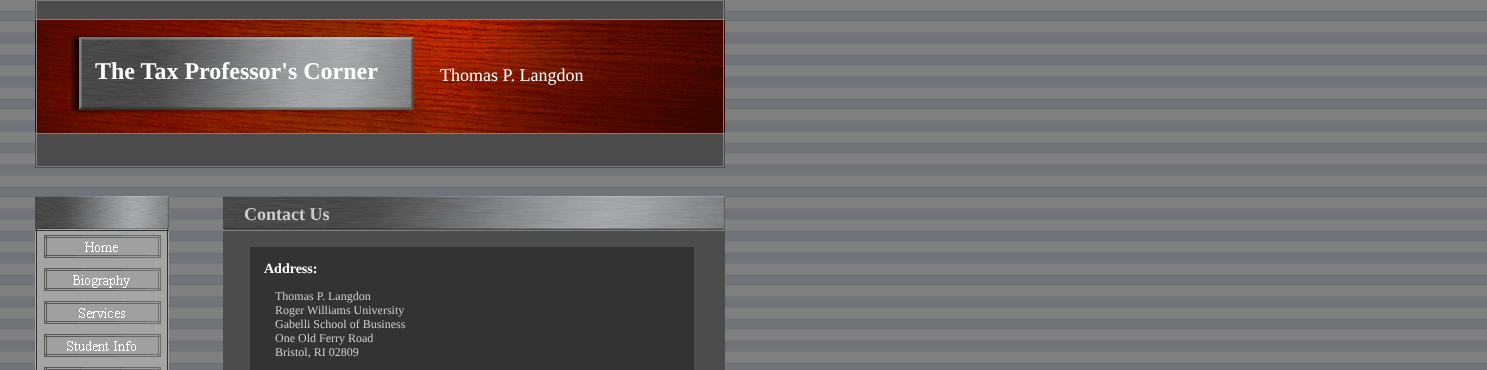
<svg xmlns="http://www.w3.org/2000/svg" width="1487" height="370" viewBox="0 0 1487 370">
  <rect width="100%" height="100%" fill="#ffffff"/>
  <image x="0" y="0" width="1487" height="370" href="img1.png"/>
  <image x="35" y="0" width="690" height="168" href="img2.png"/>
  <image x="71" y="36" width="343" height="78" href="img3.png"/>
  <text x="95" y="79" font-family="Liberation Serif" font-size="24" font-weight="bold" fill="#ffffff">The Tax Professor's Corner</text>
  <text x="440" y="81" font-family="Liberation Serif" font-size="18" fill="#ffffff">Thomas P. Langdon</text>
  <image x="35" y="196" width="134" height="35" href="img4.png"/>
  <image x="223" y="196" width="502" height="35" href="img5.png"/>
  <text x="244" y="220" font-family="Liberation Serif" font-size="18" font-weight="bold" fill="#cccccc">Contact Us</text>
  <image x="35" y="231" width="134" height="139" href="img6.png"/>
  <rect x="223" y="231" width="502" height="139" fill="#4c4c4c"/>
  <image x="44" y="235" width="117" height="23" href="img7.png"/>
  <image x="44" y="268" width="117" height="23" href="img8.png"/>
  <image x="44" y="301" width="117" height="23" href="img9.png"/>
  <image x="44" y="334" width="117" height="23" href="img10.png"/>
  <image x="44" y="367" width="117" height="3" href="img11.png"/>
  <rect x="250" y="247" width="444" height="123" fill="#333333"/>
  <text x="264" y="273" font-family="Liberation Serif" font-size="14" font-weight="bold" fill="#ffffff">Address:</text>
  <text x="275" y="300" font-family="Liberation Serif" font-size="12" fill="#cccccc">Thomas P. Langdon</text>
  <text x="275" y="314" font-family="Liberation Serif" font-size="12" fill="#cccccc">Roger Williams University</text>
  <text x="275" y="328" font-family="Liberation Serif" font-size="12" fill="#cccccc">Gabelli School of Business</text>
  <text x="275" y="342" font-family="Liberation Serif" font-size="12" fill="#cccccc">One Old Ferry Road</text>
  <text x="275" y="356" font-family="Liberation Serif" font-size="12" fill="#cccccc">Bristol, RI 02809</text>
</svg>
